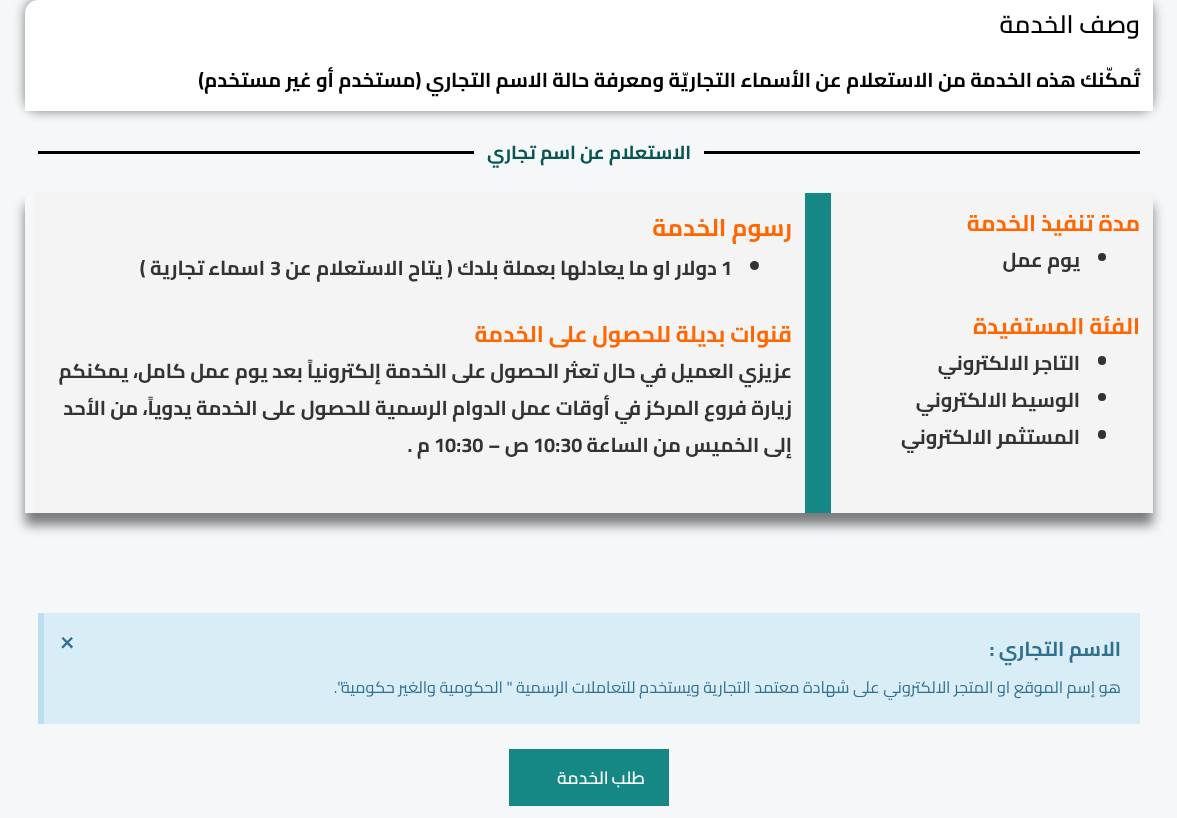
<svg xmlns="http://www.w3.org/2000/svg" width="1177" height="818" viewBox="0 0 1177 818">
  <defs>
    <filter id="blur1" x="-50%" y="-200%" width="200%" height="500%"><feGaussianBlur stdDeviation="6"/></filter>
    <clipPath id="clip1"><path d="M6 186H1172V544H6ZM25 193H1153V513H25Z" clip-rule="evenodd"/></clipPath>
  </defs>
  <rect width="100%" height="100%" fill="#f5f7f9"/>
  <rect x="25" y="0" width="1128" height="111" rx="13" fill="#000000" fill-opacity="0.5" filter="url(#blur1)"/>
  <path d="M38 0H1153V111H25V13C25 6 31 0 38 0Z" fill="#ffffff"/>
  <text x="1140" y="33" font-family="Cairo" font-size="25" font-weight="600" direction="rtl" fill="#000000">وصف الخدمة</text>
  <text x="1140" y="87" font-family="Cairo" font-size="20" font-weight="bold" direction="rtl" fill="#000000">تُمكّنك هذه الخدمة من الاستعلام عن الأسماء التجاريّة ومعرفة حالة الاسم التجاري (مستخدم أو غير مستخدم)</text>
  <rect x="704" y="151" width="436" height="3" fill="#000000"/>
  <text x="691" y="159" font-family="Cairo" font-size="18.75" font-weight="bold" direction="rtl" fill="#075653">الاستعلام عن اسم تجاري</text>
  <rect x="38" y="151" width="436" height="3" fill="#000000"/>
  <g clip-path="url(#clip1)">
    <rect x="25" y="205" width="1128" height="320" fill="#000000" fill-opacity="0.5" filter="url(#blur1)"/>
  </g>
  <rect x="831" y="193" width="322" height="320" fill="#f4f4f4"/>
  <text x="1140" y="231" font-family="Cairo" font-size="22.5" font-weight="bold" direction="rtl" fill="#ff6600">مدة تنفيذ الخدمة</text>
  <circle cx="1102" cy="257" r="4" fill="#333333"/>
  <text x="1080" y="267" font-family="Cairo" font-size="20" font-weight="bold" direction="rtl" fill="#333333">يوم عمل</text>
  <text x="1140" y="334" font-family="Cairo" font-size="22.5" font-weight="bold" direction="rtl" fill="#ff6600">الفئة المستفيدة</text>
  <rect x="1098" y="356" width="8" height="9" rx="4" fill="#333333"/>
  <text x="1080" y="370" font-family="Cairo" font-size="20" font-weight="bold" direction="rtl" fill="#333333">التاجر الالكتروني</text>
  <circle cx="1102" cy="397" r="4" fill="#333333"/>
  <text x="1080" y="407" font-family="Cairo" font-size="20" font-weight="bold" direction="rtl" fill="#333333">الوسيط الالكتروني</text>
  <rect x="1098" y="430" width="8" height="9" rx="4" fill="#333333"/>
  <text x="1080" y="444" font-family="Cairo" font-size="20" font-weight="bold" direction="rtl" fill="#333333">المستثمر الالكتروني</text>
  <rect x="805" y="193" width="26" height="320" fill="#158885"/>
  <rect x="33" y="193" width="772" height="320" fill="#f4f4f4"/>
  <text x="792" y="236" font-family="Cairo" font-size="24" font-weight="bold" direction="rtl" fill="#ff6600">رسوم الخدمة</text>
  <circle cx="754.5" cy="265.5" r="4.5" fill="#333333"/>
  <text x="721" y="275" font-family="Cairo" font-size="20" font-weight="bold" fill="#333333">1</text>
  <text x="717" y="275" font-family="Cairo" font-size="20" font-weight="bold" direction="rtl" fill="#333333">دولار او ما يعادلها بعملة بلدك ( يتاح الاستعلام عن</text>
  <text x="270" y="275" font-family="Cairo" font-size="20" font-weight="bold" fill="#333333">3</text>
  <text x="265" y="275" font-family="Cairo" font-size="20" font-weight="bold" direction="rtl" fill="#333333">اسماء تجارية )</text>
  <text x="792" y="342" font-family="Cairo" font-size="22.5" font-weight="bold" direction="rtl" fill="#ff6600">قنوات بديلة للحصول على الخدمة</text>
  <text x="792" y="378" font-family="Cairo" font-size="20" font-weight="bold" direction="rtl" fill="#333333">عزيزي العميل في حال تعثر الحصول على الخدمة إلكترونياً بعد يوم عمل كامل، يمكنكم</text>
  <text x="792" y="415" font-family="Cairo" font-size="20" font-weight="bold" direction="rtl" fill="#333333">زيارة فروع المركز في أوقات عمل الدوام الرسمية للحصول على الخدمة يدوياً، من الأحد</text>
  <text x="792" y="452" font-family="Cairo" font-size="20" font-weight="bold" direction="rtl" fill="#333333">إلى الخميس من الساعة</text>
  <text x="533" y="452" font-family="Cairo" font-size="20" font-weight="bold" fill="#333333">10:30</text>
  <text x="529" y="452" font-family="Cairo" font-size="20" font-weight="bold" direction="rtl" fill="#333333">ص –</text>
  <text x="434" y="452" font-family="Cairo" font-size="20" font-weight="bold" fill="#333333">10:30</text>
  <text x="430" y="452" font-family="Cairo" font-size="20" font-weight="bold" direction="rtl" fill="#333333">م .</text>
  <rect x="44" y="613" width="1096" height="111" fill="#d9edf7"/>
  <rect x="38" y="613" width="6" height="111" fill="#bcdff1"/>
  <text x="1121" y="656" font-family="Cairo" font-size="20" font-weight="bold" direction="rtl" fill="#31708f">الاسم التجاري :</text>
  <text x="60" y="651" font-family="Lato" font-size="25" font-weight="bold" letter-spacing="1.25" fill="#31708f">×</text>
  <text x="1121" y="693" font-family="Cairo" font-size="16.25" direction="rtl" fill="#31708f">هو إسم الموقع او المتجر الالكتروني على شهادة معتمد التجارية ويستخدم للتعاملات الرسمية " الحكومية والغير حكومية".</text>
  <rect x="509" y="749" width="160" height="57" fill="#158885"/>
  <text x="645" y="784" word-spacing="-1" font-family="Cairo" font-size="17.5" font-weight="600" letter-spacing="1.25" direction="rtl" fill="#ffffff">طلب الخدمة</text>
</svg>
